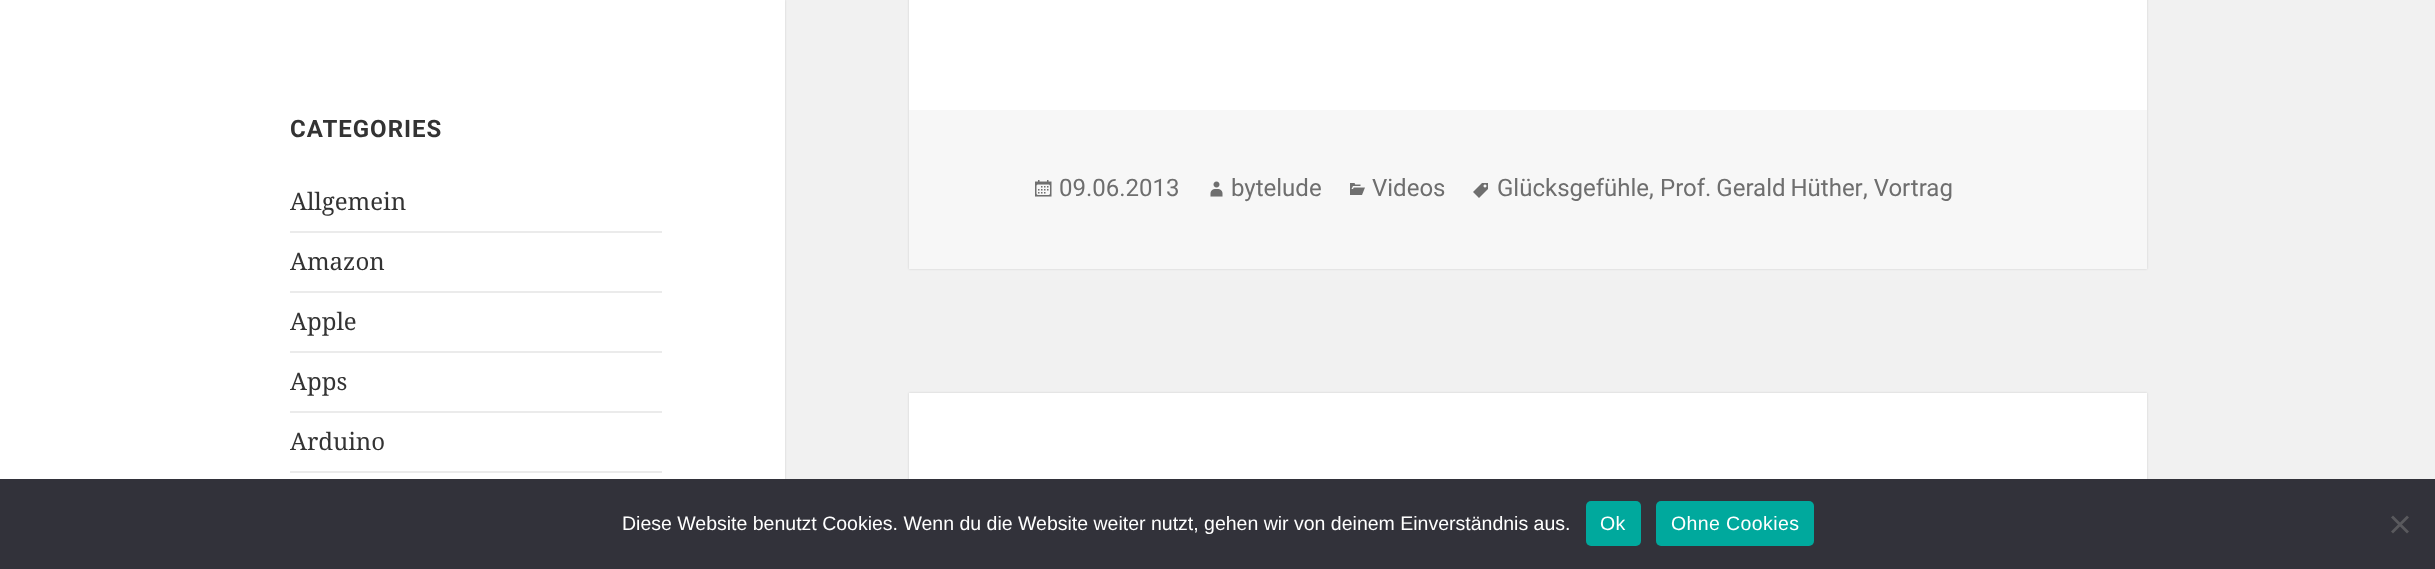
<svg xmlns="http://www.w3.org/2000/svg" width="2435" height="569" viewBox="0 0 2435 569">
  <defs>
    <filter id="blur1" x="-50%" y="-200%" width="200%" height="500%"><feGaussianBlur stdDeviation="1"/></filter>
  </defs>
  <rect width="100%" height="100%" fill="#f1f1f1"/>
  <rect x="0" y="0" width="785" height="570" fill="#000000" fill-opacity="0.15" filter="url(#blur1)"/>
  <rect x="0" y="0" width="785" height="479" fill="#ffffff"/>
  <text x="290" y="137" font-family="Roboto" font-size="24" font-weight="bold" letter-spacing="1" fill="#333333">CATEGORIES</text>
  <text x="290" y="210" font-family="Noto Serif" font-size="24" fill="#333333">Allgemein</text>
  <rect x="290" y="231" width="372" height="2" fill="#ebebeb"/>
  <text x="290" y="270" font-family="Noto Serif" font-size="24" fill="#333333">Amazon</text>
  <rect x="290" y="291" width="372" height="2" fill="#ebebeb"/>
  <text x="290" y="330" font-family="Noto Serif" font-size="24" fill="#333333">Apple</text>
  <rect x="290" y="351" width="372" height="2" fill="#ebebeb"/>
  <text x="290" y="390" font-family="Noto Serif" font-size="24" fill="#333333">Apps</text>
  <rect x="290" y="411" width="372" height="2" fill="#ebebeb"/>
  <text x="290" y="450" font-family="Noto Serif" font-size="24" fill="#333333">Arduino</text>
  <rect x="290" y="471" width="372" height="2" fill="#ebebeb"/>
  <rect x="909" y="-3" width="1238" height="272" fill="#000000" fill-opacity="0.15" filter="url(#blur1)"/>
  <rect x="909" y="0" width="1238" height="110" fill="#ffffff"/>
  <rect x="909" y="110" width="1238" height="159" fill="#f7f7f7"/>
  <image x="1035" y="180" width="17" height="17" href="img1.png"/>
  <text x="1059" y="196" font-family="Roboto" font-size="24" fill="#6e6e6e">09.06.2013</text>
  <image x="1210" y="181" width="13" height="16" href="img2.png"/>
  <text x="1231" y="196" font-family="Roboto" font-size="24" fill="#6e6e6e">bytelude</text>
  <image x="1350" y="183" width="15" height="12" href="img3.png"/>
  <text x="1372" y="196" font-family="Roboto" font-size="24" fill="#6e6e6e">Videos</text>
  <image x="1473" y="183" width="15" height="15" href="img4.png"/>
  <text x="1497" y="196" font-family="Roboto" font-size="24" fill="#6e6e6e">Glücksgefühle,</text>
  <text x="1660" y="196" word-spacing="-1" font-family="Roboto" font-size="24" fill="#6e6e6e">Prof. Gerald Hüther</text>
  <text x="1863" y="196" font-family="Roboto" font-size="24" fill="#6e6e6e">, Vortrag</text>
  <rect x="909" y="393" width="1238" height="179" fill="#000000" fill-opacity="0.15" filter="url(#blur1)"/>
  <rect x="909" y="393" width="1238" height="86" fill="#ffffff"/>
  <rect x="0" y="479" width="2435" height="90" fill="#32323a"/>
  <text x="622" y="530" font-family="Liberation Sans" font-size="19.5" fill="#ffffff">Diese Website benutzt Cookies. Wenn du die Website weiter nutzt, gehen wir von deinem Einverständnis aus.</text>
  <rect x="1586" y="501" width="55" height="45" rx="5" fill="#00a99d"/>
  <text x="1600" y="530" font-family="Liberation Sans" font-size="19.5" letter-spacing="0.4" fill="#ffffff">Ok</text>
  <rect x="1656" y="501" width="158" height="45" rx="5" fill="#00a99d"/>
  <text x="1671" y="530" font-family="Liberation Sans" font-size="19.5" letter-spacing="0.4" fill="#ffffff">Ohne Cookies</text>
  <path d="M2407 515.5L2409 517.5L2393 533.5L2391 531.5Z" fill="#59595d"/>
  <path d="M2391 517.5L2393 515.5L2409 531.5L2407 533.5Z" fill="#59595d"/>
</svg>
